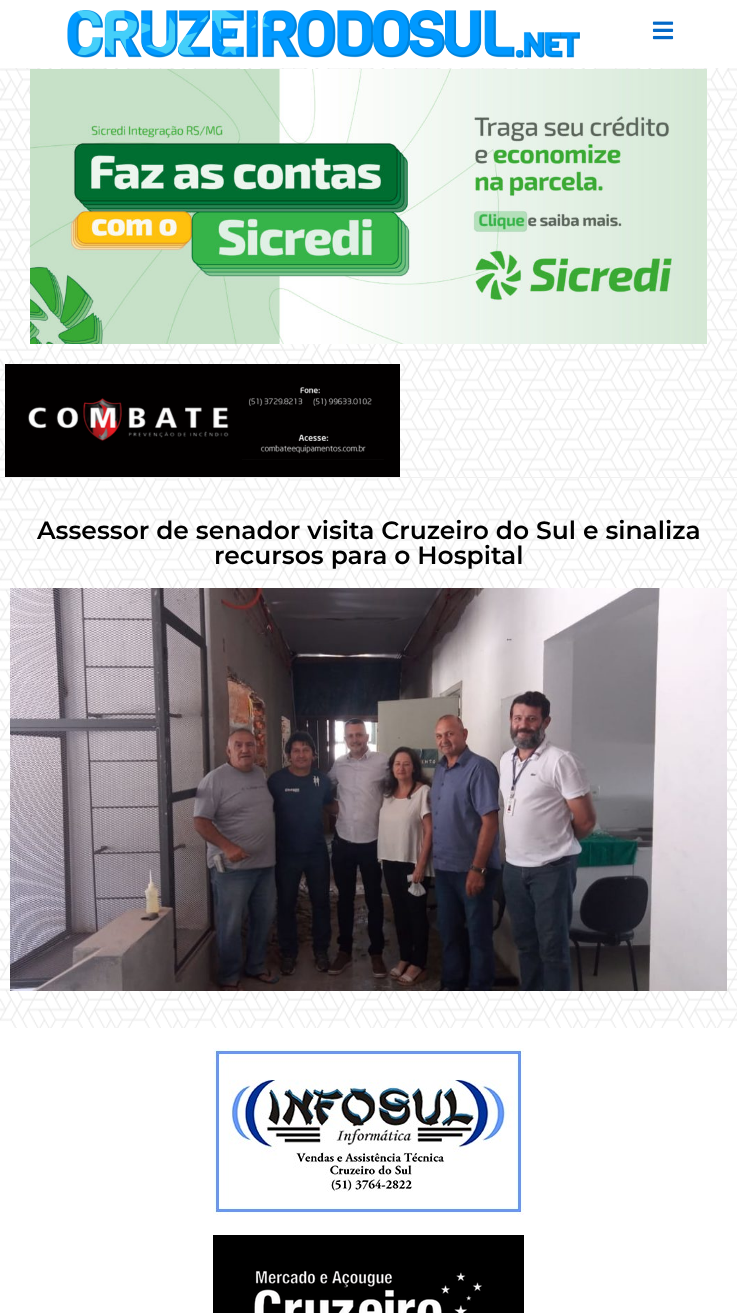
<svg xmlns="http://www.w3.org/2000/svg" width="737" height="1313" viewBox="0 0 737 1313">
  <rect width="100%" height="100%" fill="#ffffff"/>
  <image x="0" y="478" width="737" height="550" href="img1.png"/>
  <rect x="0" y="477" width="737" height="1" fill="#f1f1f1"/>
  <image x="0" y="68" width="737" height="409" href="img2.png"/>
  <image x="67" y="10" width="513" height="48" href="img3.png"/>
  <image x="652" y="21" width="22" height="19" href="img4.png"/>
  <image x="30" y="69" width="677" height="275" href="img5.png"/>
  <image x="5" y="364" width="395" height="113" href="img6.png"/>
  <text x="37" y="539" font-family="Montserrat" font-size="25" font-weight="600" fill="#000000">Assessor de senador visita Cruzeiro do Sul e sinaliza</text>
  <text x="214" y="564" font-family="Montserrat" font-size="25" font-weight="600" fill="#000000">recursos para o Hospital</text>
  <image x="10" y="588" width="717" height="403" href="img7.png"/>
  <image x="213" y="1048" width="311" height="167" href="img8.png"/>
  <image x="213" y="1235" width="311" height="78" href="img9.png"/>
</svg>
